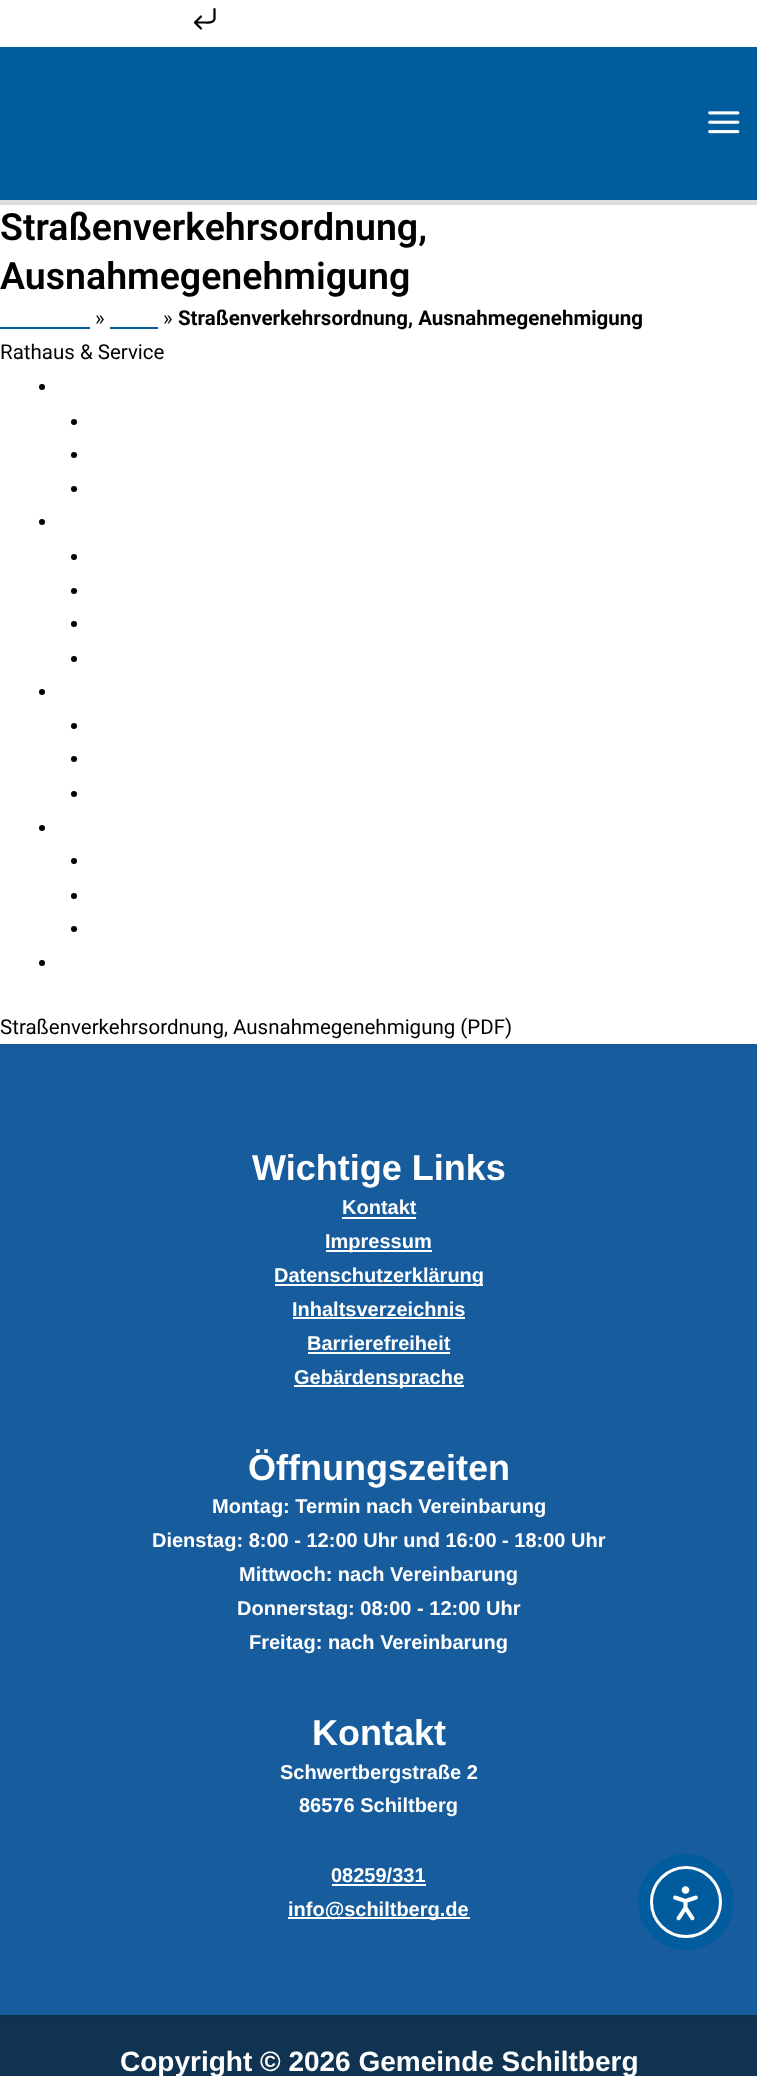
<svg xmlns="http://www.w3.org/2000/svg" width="757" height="2076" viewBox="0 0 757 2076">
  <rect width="100%" height="100%" fill="#ffffff"/>
  <path d="M214.5 9V19C213.5 23.5 208.5 22.5 205 22.5H195M195 22.5L201 16.5M195 22.5L201 28.5" fill="none" stroke="#000000" stroke-width="2.2" stroke-linecap="round" stroke-linejoin="round"/>
  <rect x="0" y="47" width="757" height="153" fill="#015c9d"/>
  <rect x="0" y="200" width="757" height="5" fill="#dddddd"/>
  <image x="708" y="111" width="32" height="23" href="img1.png"/>
  <text x="0" y="240" font-family="Roboto" font-size="37.5" font-weight="600" fill="#010101">Straßenverkehrsordnung,</text>
  <text x="0" y="289" font-family="Roboto" font-size="37.5" font-weight="600" fill="#010101">Ausnahmegenehmigung</text>
  <text x="95" y="325" font-family="Roboto" font-size="20.5" fill="#010101">»</text>
  <rect x="0" y="327" width="90" height="2" fill="#015c9d"/>
  <rect x="110" y="327" width="48" height="2" fill="#015c9d"/>
  <text x="163" y="325" font-family="Roboto" font-size="20.5" fill="#010101">»</text>
  <text x="178" y="325" font-family="Roboto" font-size="20.5" font-weight="bold" fill="#010101">Straßenverkehrsordnung, Ausnahmegenehmigung</text>
  <text x="0" y="359" font-family="Roboto" font-size="20.5" fill="#010101">Rathaus &amp; Service</text>
  <circle cx="42" cy="387" r="3" fill="#010101"/>
  <circle cx="74" cy="422" r="3" fill="#010101"/>
  <circle cx="74" cy="455" r="3" fill="#010101"/>
  <circle cx="74" cy="489" r="3" fill="#010101"/>
  <circle cx="42" cy="522" r="3" fill="#010101"/>
  <circle cx="74" cy="557" r="3" fill="#010101"/>
  <circle cx="74" cy="591" r="3" fill="#010101"/>
  <circle cx="74" cy="624" r="3" fill="#010101"/>
  <circle cx="74" cy="659" r="3" fill="#010101"/>
  <circle cx="42" cy="692" r="3" fill="#010101"/>
  <circle cx="74" cy="726" r="3" fill="#010101"/>
  <circle cx="74" cy="759" r="3" fill="#010101"/>
  <circle cx="74" cy="794" r="3" fill="#010101"/>
  <circle cx="42" cy="828" r="3" fill="#010101"/>
  <circle cx="74" cy="861" r="3" fill="#010101"/>
  <circle cx="74" cy="896" r="3" fill="#010101"/>
  <circle cx="74" cy="929" r="3" fill="#010101"/>
  <circle cx="42" cy="963" r="3" fill="#010101"/>
  <text x="0" y="1034" font-family="Roboto" font-size="20.5" fill="#010101">Straßenverkehrsordnung, Ausnahmegenehmigung (PDF)</text>
  <rect x="0" y="1044" width="757" height="971" fill="#175c9d"/>
  <text x="252" y="1180" font-family="Liberation Sans" font-size="36" font-weight="bold" fill="#ffffff">Wichtige Links</text>
  <text x="342" y="1214" font-family="Liberation Sans" font-size="20" font-weight="bold" fill="#ffffff">Kontakt</text>
  <rect x="342" y="1217" width="74" height="2" fill="#ffffff"/>
  <rect x="326" y="1250" width="106" height="2" fill="#ffffff"/>
  <text x="325" y="1248" font-family="Liberation Sans" font-size="20" font-weight="bold" fill="#ffffff">Impressum</text>
  <rect x="275" y="1284" width="208" height="2" fill="#ffffff"/>
  <text x="274" y="1282" font-family="Liberation Sans" font-size="20" font-weight="bold" fill="#ffffff">Datenschutzerklärung</text>
  <text x="292" y="1316" font-family="Liberation Sans" font-size="20" font-weight="bold" fill="#ffffff">Inhaltsverzeichnis</text>
  <rect x="293" y="1317" width="172" height="2" fill="#ffffff"/>
  <text x="307" y="1350" font-family="Liberation Sans" font-size="20" font-weight="bold" fill="#ffffff">Barrierefreiheit</text>
  <rect x="308" y="1352" width="142" height="2" fill="#ffffff"/>
  <rect x="294" y="1385" width="170" height="2" fill="#ffffff"/>
  <text x="294" y="1384" font-family="Liberation Sans" font-size="20" font-weight="bold" fill="#ffffff">Gebärdensprache</text>
  <text x="248" y="1480" font-family="Liberation Sans" font-size="36" font-weight="bold" fill="#ffffff">Öffnungszeiten</text>
  <text x="212" y="1513" font-family="Liberation Sans" font-size="20" font-weight="bold" fill="#ffffff">Montag: Termin nach Vereinbarung</text>
  <text x="152" y="1547" font-family="Liberation Sans" font-size="20" font-weight="bold" fill="#ffffff">Dienstag: 8:00 - 12:00 Uhr und 16:00 - 18:00 Uhr</text>
  <text x="239" y="1581" font-family="Liberation Sans" font-size="20" font-weight="bold" fill="#ffffff">Mittwoch: nach Vereinbarung</text>
  <text x="237" y="1615" font-family="Liberation Sans" font-size="20" font-weight="bold" fill="#ffffff">Donnerstag: 08:00 - 12:00 Uhr</text>
  <text x="249" y="1649" font-family="Liberation Sans" font-size="20" font-weight="bold" fill="#ffffff">Freitag: nach Vereinbarung</text>
  <text x="312" y="1745" font-family="Liberation Sans" font-size="36" font-weight="bold" fill="#ffffff">Kontakt</text>
  <text x="280" y="1779" font-family="Liberation Sans" font-size="20" font-weight="bold" fill="#ffffff">Schwertbergstraße 2</text>
  <text x="299" y="1812" font-family="Liberation Sans" font-size="20" font-weight="bold" fill="#ffffff">86576 Schiltberg</text>
  <text x="331" y="1882" font-family="Liberation Sans" font-size="20" font-weight="bold" fill="#ffffff">08259/331</text>
  <rect x="332" y="1884" width="94" height="2" fill="#ffffff"/>
  <rect x="288" y="1917" width="182" height="2" fill="#ffffff"/>
  <text x="288" y="1916" font-family="Liberation Sans" font-size="20" font-weight="bold" fill="#ffffff">info@schiltberg.de</text>
  <rect x="0" y="2017" width="757" height="59" fill="#0f3351"/>
  <rect x="0" y="2015" width="757" height="2" fill="#0c2e46"/>
  <text x="120" y="2071" font-family="Liberation Sans" font-size="28" font-weight="bold" fill="#ffffff">Copyright © 2026 Gemeinde Schiltberg</text>
  <circle cx="686" cy="1902" r="48" fill="#015c9d"/>
  <circle cx="686" cy="1902" r="34.5" fill="none" stroke="#ffffff" stroke-width="3"/>
  <image x="673" y="1886" width="25" height="35" href="img2.png"/>
</svg>
